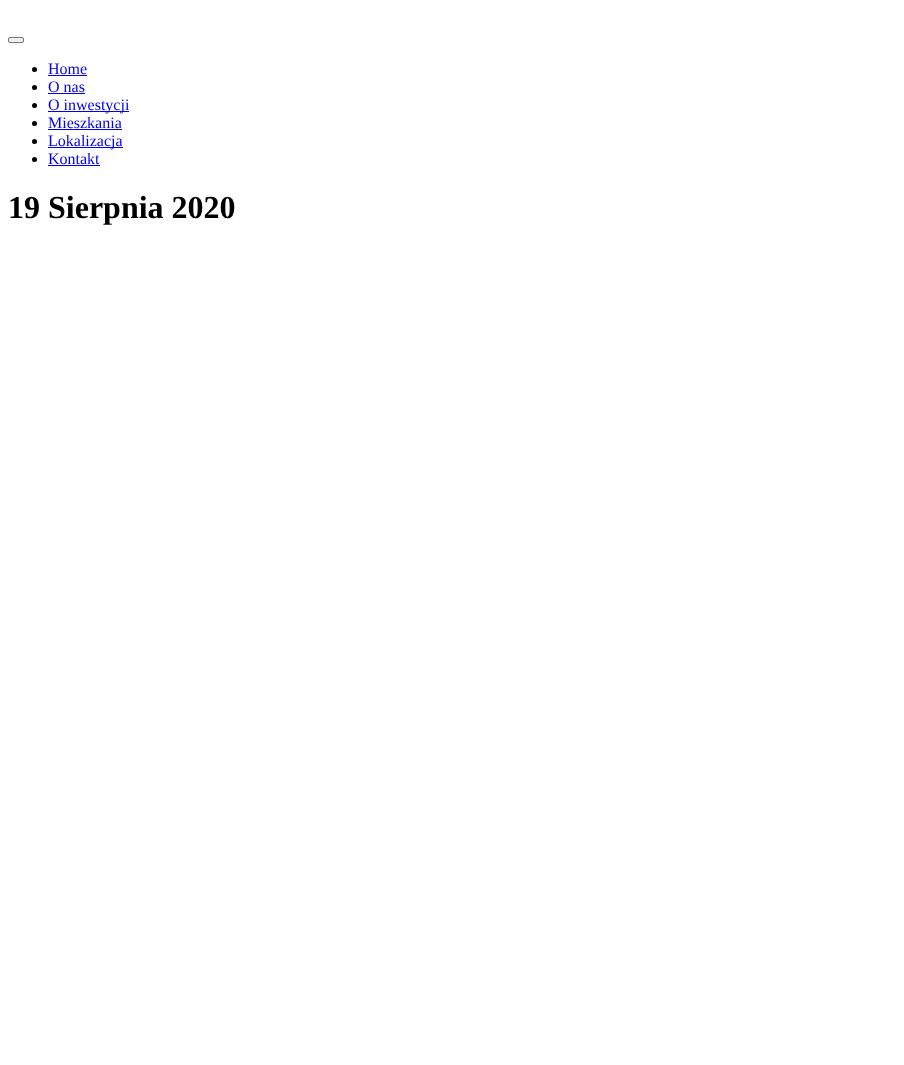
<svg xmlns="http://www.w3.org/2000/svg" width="904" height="1065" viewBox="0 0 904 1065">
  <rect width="100%" height="100%" fill="#ffffff"/>
  <rect x="8.5" y="37.5" width="15" height="5" rx="1.5" fill="#efefef" stroke="#767676"/>
  <circle cx="34.5" cy="69.5" r="2.5" fill="#000000"/>
  <text x="48" y="74" font-family="Liberation Serif" font-size="16" fill="#0000ee">Home</text>
  <rect x="48" y="75" width="39" height="1" fill="#0000ee"/>
  <circle cx="34.5" cy="87.5" r="2.5" fill="#000000"/>
  <text x="48" y="92" font-family="Liberation Serif" font-size="16" fill="#0000ee">O nas</text>
  <rect x="48" y="93" width="37" height="1" fill="#0000ee"/>
  <circle cx="34.5" cy="105.5" r="2.5" fill="#000000"/>
  <rect x="48" y="111" width="81" height="1" fill="#0000ee"/>
  <text x="48" y="110" font-family="Liberation Serif" font-size="16" fill="#0000ee">O inwestycji</text>
  <circle cx="34.5" cy="123.5" r="2.5" fill="#000000"/>
  <text x="48" y="128" font-family="Liberation Serif" font-size="16" fill="#0000ee">Mieszkania</text>
  <rect x="48" y="129" width="74" height="1" fill="#0000ee"/>
  <circle cx="34.5" cy="141.5" r="2.5" fill="#000000"/>
  <rect x="48" y="147" width="75" height="1" fill="#0000ee"/>
  <text x="48" y="146" font-family="Liberation Serif" font-size="16" fill="#0000ee">Lokalizacja</text>
  <circle cx="34.5" cy="159.5" r="2.5" fill="#000000"/>
  <text x="48" y="164" font-family="Liberation Serif" font-size="16" fill="#0000ee">Kontakt</text>
  <rect x="48" y="165" width="52" height="1" fill="#0000ee"/>
  <text x="8" y="218" font-family="Liberation Serif" font-size="32" font-weight="bold" fill="#000000">19 Sierpnia 2020</text>
</svg>
